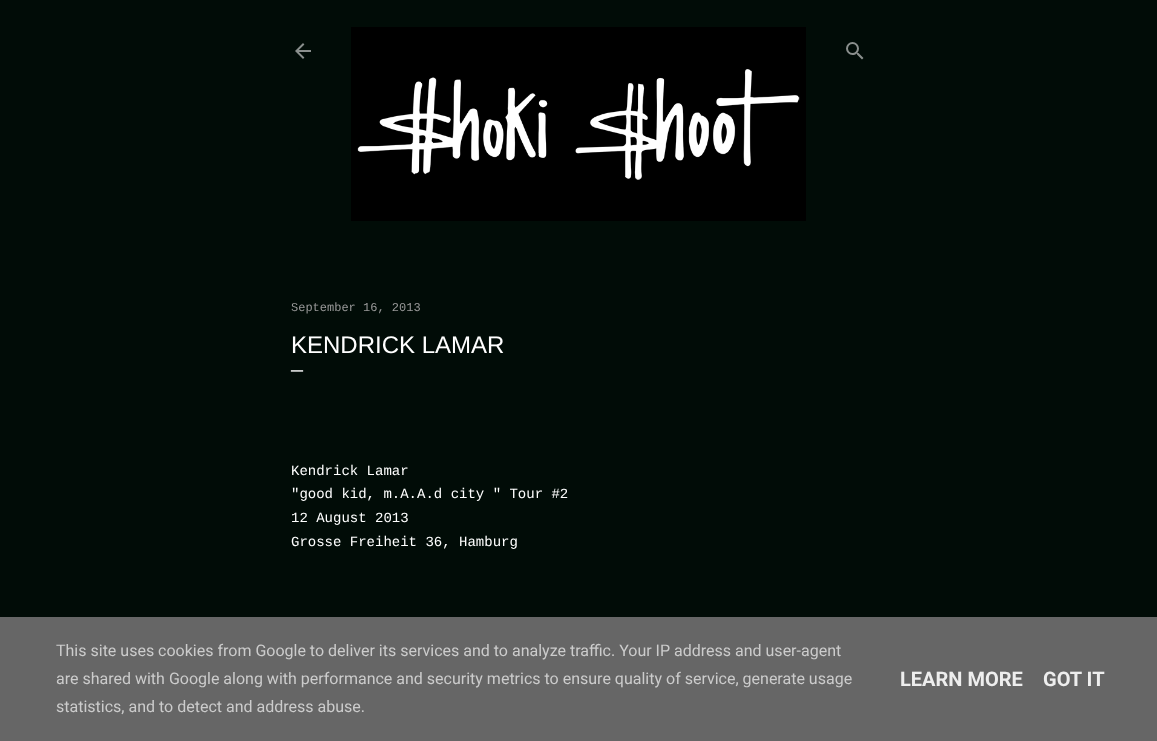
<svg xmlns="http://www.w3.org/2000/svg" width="1157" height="741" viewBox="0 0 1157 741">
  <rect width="100%" height="100%" fill="#010c07"/>
  <image x="295" y="43" width="16" height="16" href="img1.png"/>
  <image x="351" y="27" width="455" height="194" href="img2.png"/>
  <image x="846" y="42" width="18" height="18" href="img3.png"/>
  <text x="291" y="311" font-family="Liberation Mono" font-size="12" fill="#999999">September 16, 2013</text>
  <text x="291" y="353" font-family="Liberation Sans" font-size="24" fill="#ffffff">KENDRICK LAMAR</text>
  <text x="291" y="376" font-family="Liberation Mono" font-size="20" fill="#ffffff">—</text>
  <text x="291" y="475" font-family="Liberation Mono" font-size="14" fill="#ffffff">Kendrick Lamar</text>
  <text x="291" y="498" font-family="Liberation Mono" font-size="14" fill="#ffffff">"good kid, m.A.A.d city " Tour #2</text>
  <text x="291" y="522" font-family="Liberation Mono" font-size="14" fill="#ffffff">12 August 2013</text>
  <text x="291" y="546" font-family="Liberation Mono" font-size="14" fill="#ffffff">Grosse Freiheit 36, Hamburg</text>
  <rect x="0" y="617" width="1157" height="124" fill="#666666"/>
  <text x="56" y="656" font-family="Roboto" font-size="16" fill="#cccccc">This site uses cookies from Google to deliver its services and to analyze traffic. Your IP address and user-agent</text>
  <text x="56" y="684" font-family="Roboto" font-size="16" fill="#cccccc">are shared with Google along with performance and security metrics to ensure quality of service, generate usage</text>
  <text x="56" y="712" font-family="Roboto" font-size="16" fill="#cccccc">statistics, and to detect and address abuse.</text>
  <text x="900" y="686" font-family="Roboto" font-size="20" font-weight="bold" fill="#eeeeee">LEARN MORE</text>
  <text x="1043" y="686" font-family="Roboto" font-size="20" font-weight="bold" fill="#eeeeee">GOT IT</text>
</svg>
